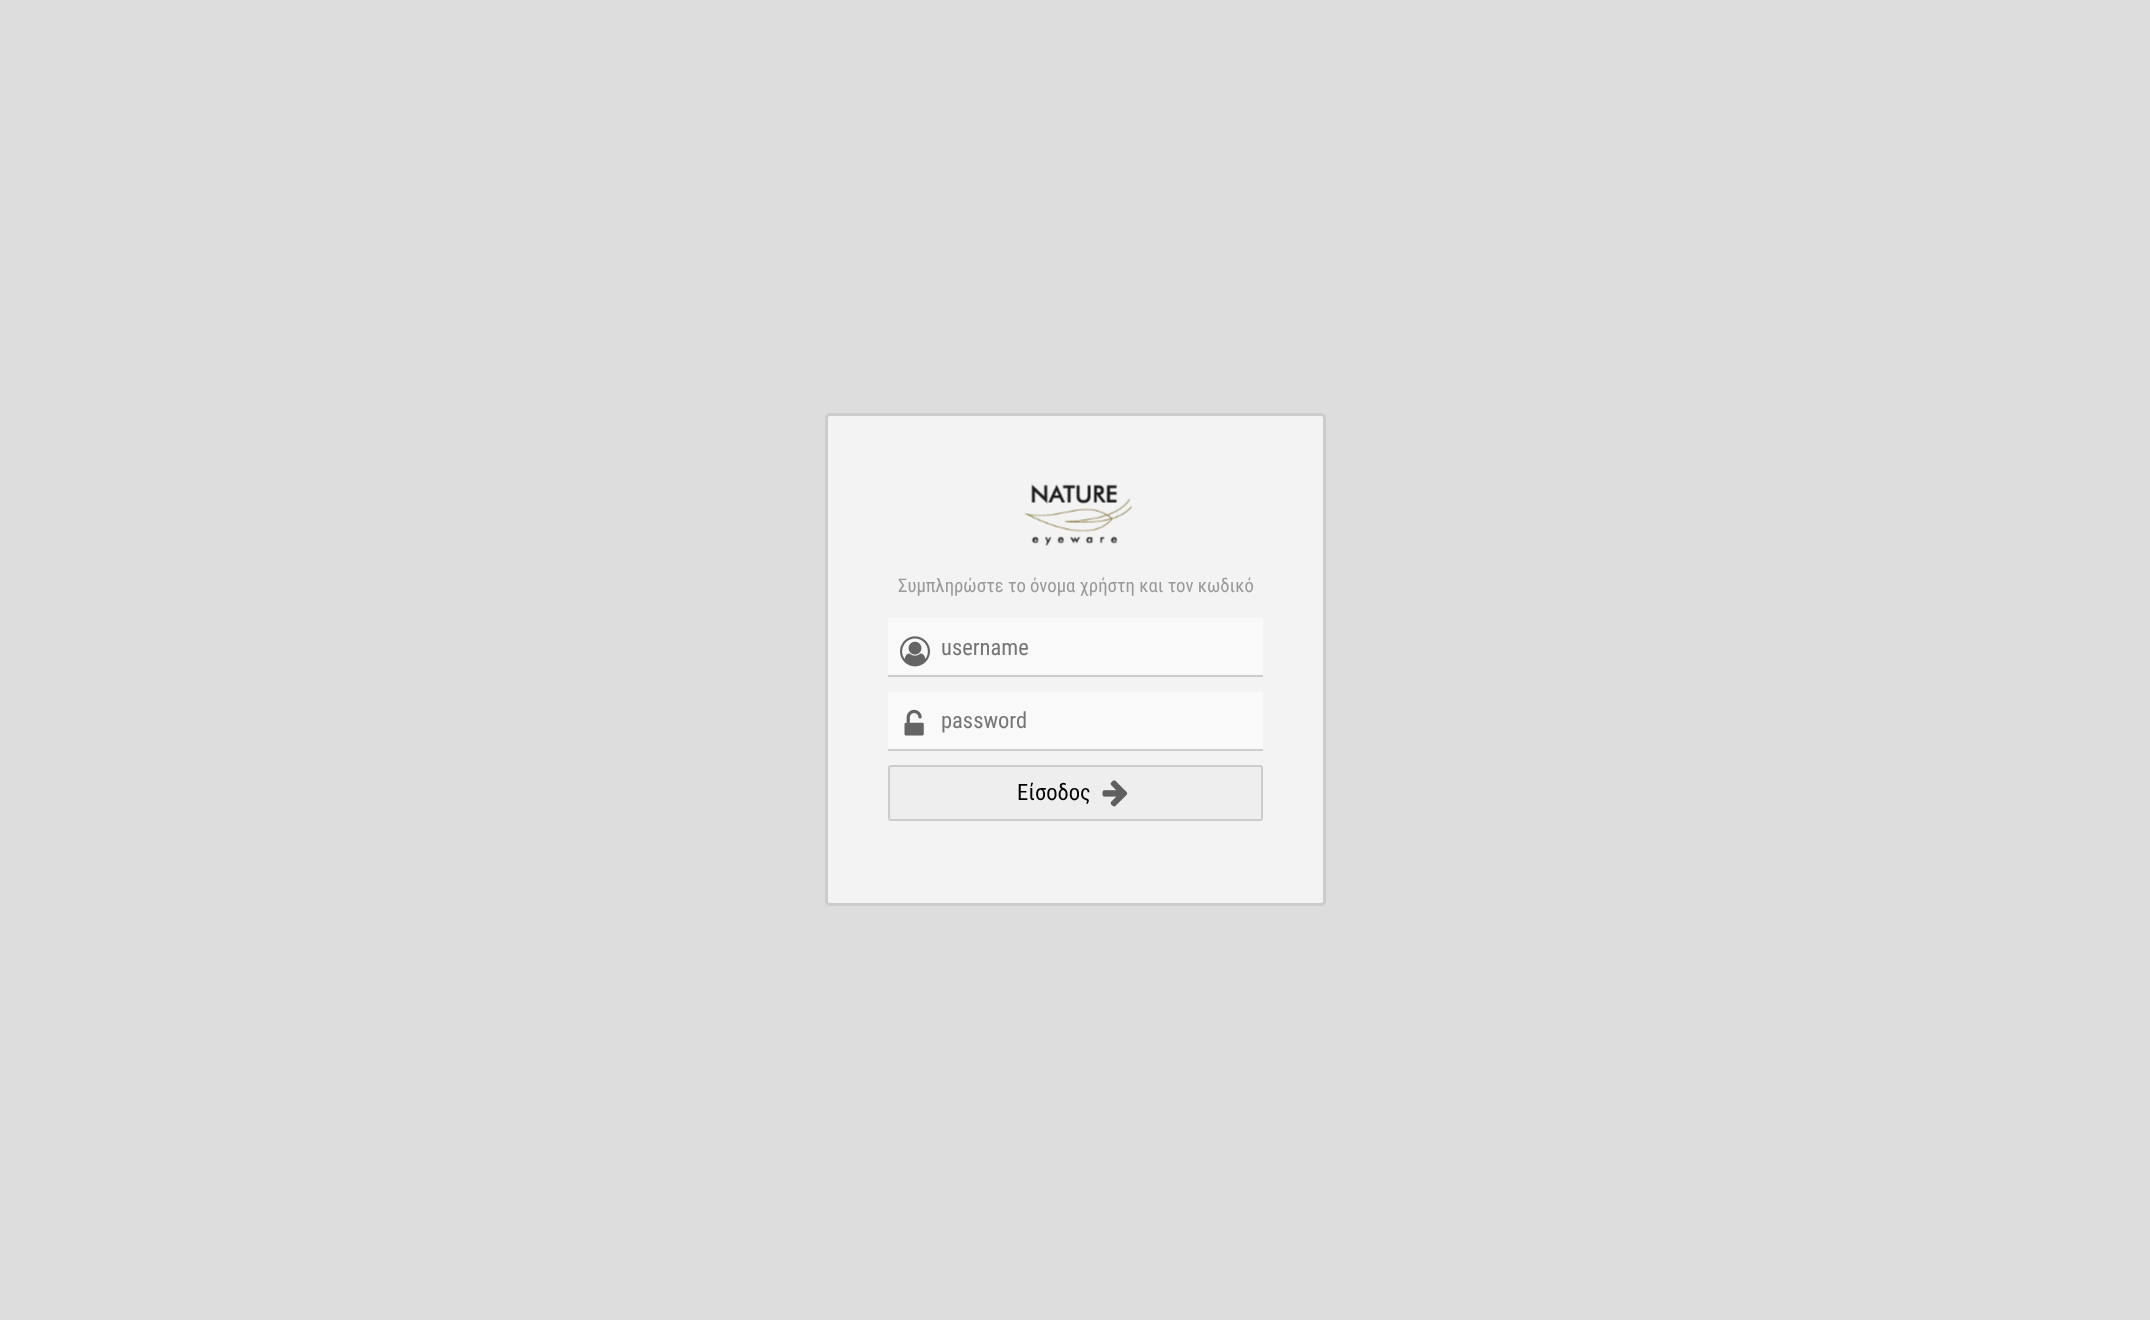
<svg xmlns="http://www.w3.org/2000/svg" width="2150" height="1320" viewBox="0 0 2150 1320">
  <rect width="100%" height="100%" fill="#dddddd"/>
  <rect x="826.5" y="414.5" width="498" height="490" rx="3.5" fill="#f3f3f3" stroke="#cccccc" stroke-width="3"/>
  <image x="1024" y="484" width="109" height="62" href="img1.png"/>
  <text x="898" y="592" font-family="Roboto Condensed" font-size="18.75" fill="#999999">Συμπληρώστε το όνομα χρήστη και τον κωδικό</text>
  <rect x="888" y="618" width="375" height="57" fill="#f9f9f9"/>
  <image x="900" y="636" width="30" height="31" href="img2.png"/>
  <rect x="888" y="675" width="375" height="2" fill="#cccccc"/>
  <text x="941" y="655" font-family="Roboto Condensed" font-size="22.5" fill="#757575">username</text>
  <rect x="888" y="692" width="375" height="57" fill="#f9f9f9"/>
  <image x="904" y="709" width="20" height="27" href="img3.png"/>
  <rect x="888" y="749" width="375" height="2" fill="#cccccc"/>
  <text x="941" y="728" font-family="Roboto Condensed" font-size="22.5" fill="#757575">password</text>
  <rect x="889" y="766" width="373" height="54" rx="2" fill="#eeeeee" stroke="#cccccc" stroke-width="2"/>
  <text x="1017" y="800" font-family="Roboto Condensed" font-size="22.5" fill="#000000">Είσοδος</text>
  <image x="1102" y="780" width="26" height="27" href="img4.png"/>
</svg>
